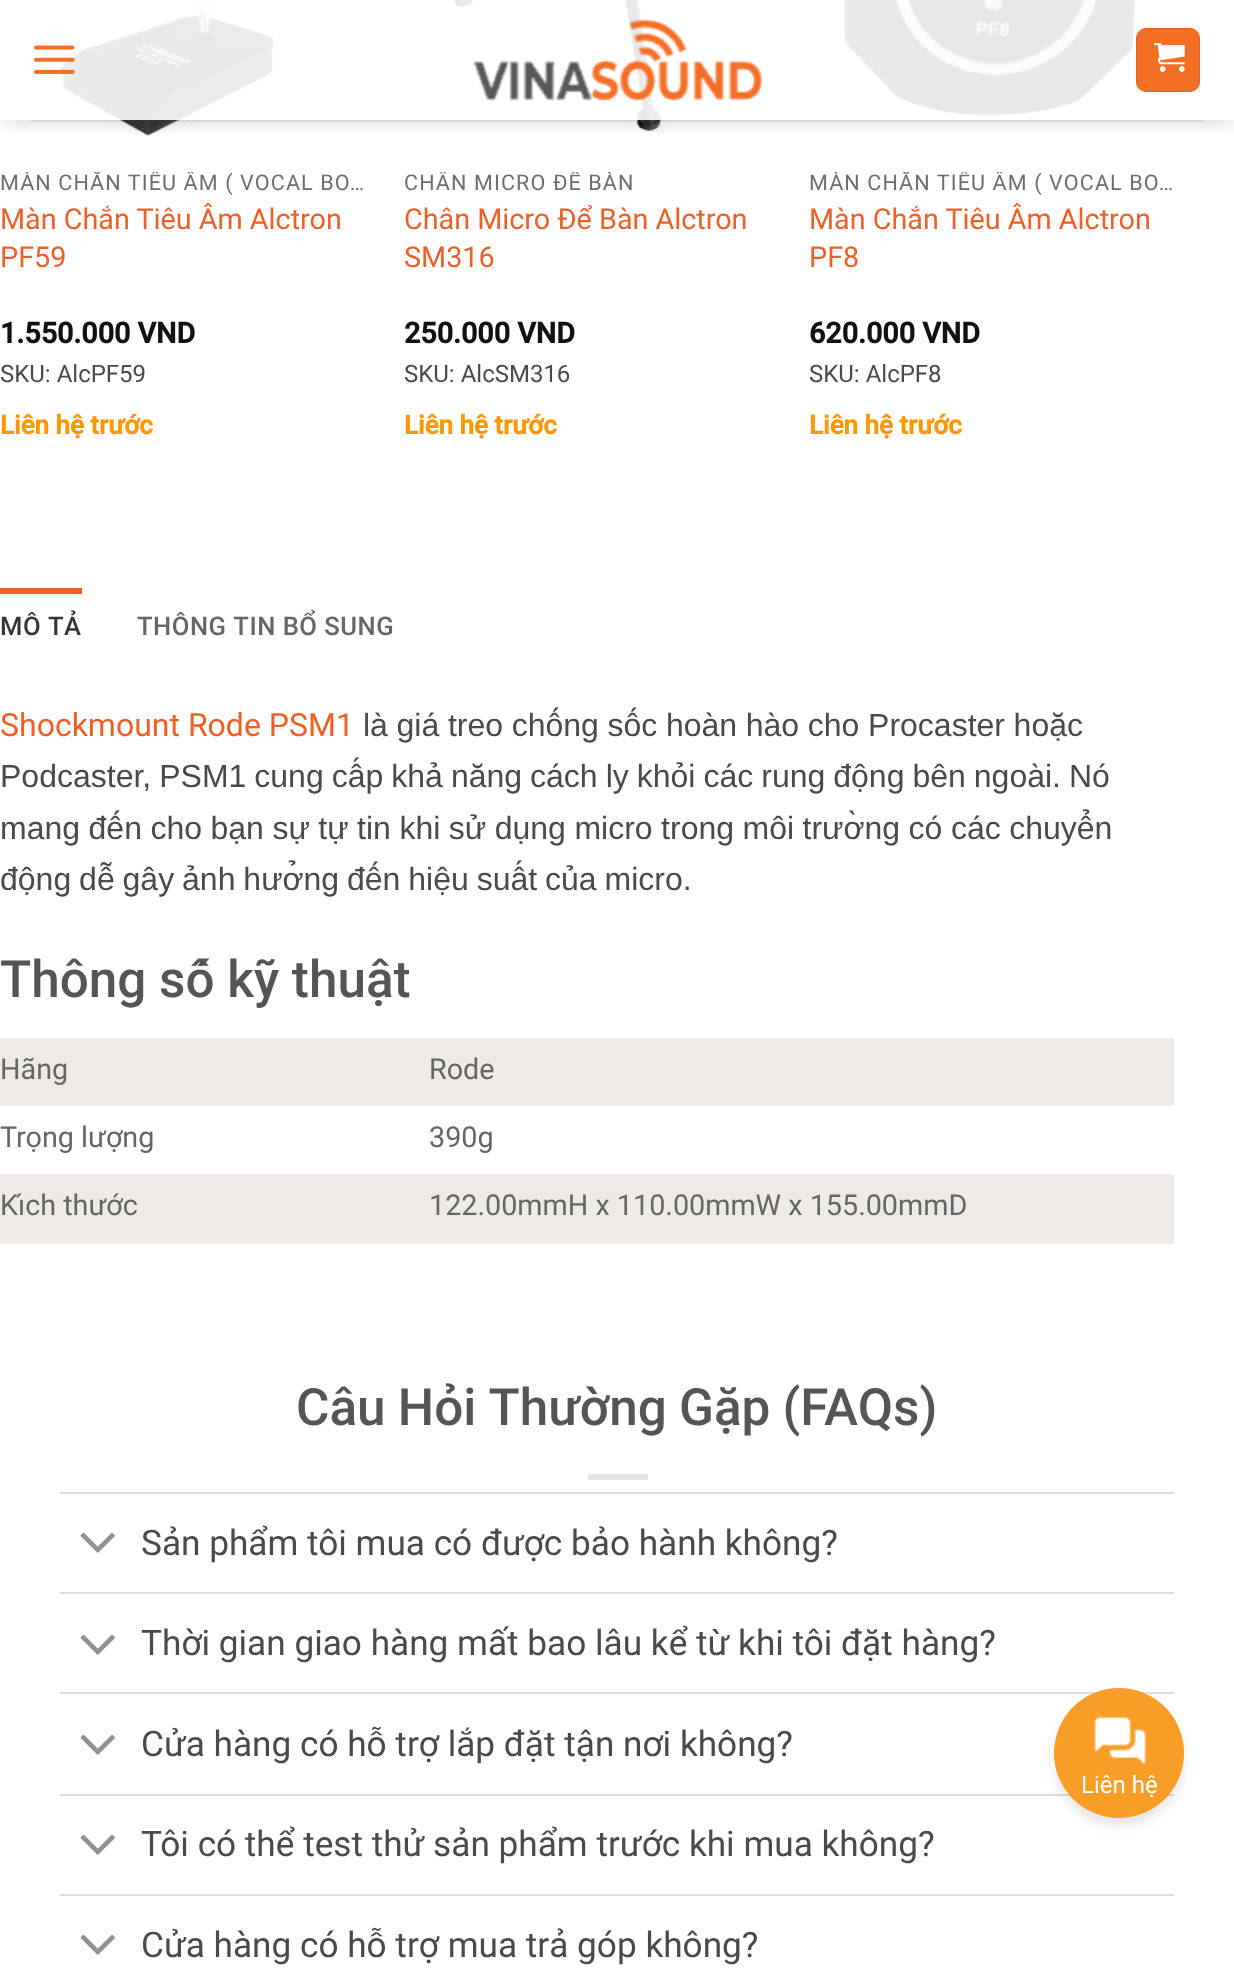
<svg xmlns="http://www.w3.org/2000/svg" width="1234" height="1978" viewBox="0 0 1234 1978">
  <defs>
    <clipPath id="clip1"><rect x="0" y="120" width="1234" height="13"/></clipPath>
    <filter id="blur1" x="-50%" y="-200%" width="200%" height="500%"><feGaussianBlur stdDeviation="10"/></filter>
    <clipPath id="clip2"><rect x="0" y="172" width="366" height="26"/></clipPath>
    <clipPath id="clip3"><rect x="404" y="172" width="366" height="26"/></clipPath>
    <clipPath id="clip4"><rect x="808" y="172" width="366" height="26"/></clipPath>
    <filter id="blur2" x="-50%" y="-200%" width="200%" height="500%"><feGaussianBlur stdDeviation="6"/></filter>
  </defs>
  <rect width="100%" height="100%" fill="#ffffff"/>
  <image x="58" y="0" width="217" height="136" href="img4.png"/>
  <image x="453" y="0" width="215" height="135" href="img5.png"/>
  <image x="840" y="0" width="300" height="116" href="img6.png"/>
  <g clip-path="url(#clip1)">
    <rect x="2" y="2" width="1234" height="120" fill="#000000" fill-opacity="0.15" filter="url(#blur1)"/>
  </g>
  <rect x="58" y="0" width="1082" height="120" fill="#ffffff" fill-opacity="0.9"/>
  <image x="34" y="45" width="41" height="29" href="img1.png"/>
  <image x="473" y="19" width="290" height="82" href="img2.png"/>
  <rect x="1136" y="28" width="64" height="64" rx="10" fill="#f36f24"/>
  <rect x="1137" y="29" width="62" height="62" fill="none" stroke="#000000" stroke-opacity="0.05" stroke-width="2"/>
  <image x="1154" y="43" width="31" height="29" href="img3.png"/>
  <rect x="30" y="120" width="1174" height="2" fill="#4a4a4a" fill-opacity="0.1"/>
  <g clip-path="url(#clip2)">
    <text x="0" y="190" font-family="Roboto" font-size="21.6" letter-spacing="1.1" fill="#6e6e6e">MÀN CHẮN TIÊU ÂM ( VOCAL BO…</text>
  </g>
  <text x="0" y="229" font-family="Roboto" font-size="28.75" fill="#ef5f26">Màn Chắn Tiêu Âm Alctron</text>
  <text x="0" y="267" font-family="Roboto" font-size="28.75" fill="#ef5f26">PF59</text>
  <text x="0" y="343" font-family="Roboto" font-size="28.75" font-weight="bold" fill="#111111">1.550.000 VND</text>
  <text x="0" y="382" font-family="Roboto" font-size="24" fill="#4a4a4a">SKU: AlcPF59</text>
  <text x="0" y="434" font-family="Roboto" font-size="26" font-weight="bold" fill="#ff9800">Liên hệ trước</text>
  <g clip-path="url(#clip3)">
    <text x="404" y="190" font-family="Roboto" font-size="21.6" letter-spacing="1.1" fill="#6e6e6e">CHÂN MICRO ĐỂ BÀN</text>
  </g>
  <text x="404" y="229" font-family="Roboto" font-size="28.75" fill="#ef5f26">Chân Micro Để Bàn Alctron</text>
  <text x="404" y="267" font-family="Roboto" font-size="28.75" fill="#ef5f26">SM316</text>
  <text x="404" y="343" font-family="Roboto" font-size="28.75" font-weight="bold" fill="#111111">250.000 VND</text>
  <text x="404" y="382" font-family="Roboto" font-size="24" fill="#4a4a4a">SKU: AlcSM316</text>
  <text x="404" y="434" font-family="Roboto" font-size="26" font-weight="bold" fill="#ff9800">Liên hệ trước</text>
  <g clip-path="url(#clip4)">
    <text x="809" y="190" font-family="Roboto" font-size="21.6" letter-spacing="1.1" fill="#6e6e6e">MÀN CHẮN TIÊU ÂM ( VOCAL BO…</text>
  </g>
  <text x="809" y="229" font-family="Roboto" font-size="28.75" fill="#ef5f26">Màn Chắn Tiêu Âm Alctron</text>
  <text x="809" y="267" font-family="Roboto" font-size="28.75" fill="#ef5f26">PF8</text>
  <text x="809" y="343" font-family="Roboto" font-size="28.75" font-weight="bold" fill="#111111">620.000 VND</text>
  <text x="809" y="382" font-family="Roboto" font-size="24" fill="#4a4a4a">SKU: AlcPF8</text>
  <text x="809" y="434" font-family="Roboto" font-size="26" font-weight="bold" fill="#ff9800">Liên hệ trước</text>
  <rect x="0" y="588" width="82" height="6" fill="#ef5f26"/>
  <text x="0" y="635" font-family="Roboto" font-size="25.6" font-weight="500" letter-spacing="0.5" fill="#363636">MÔ TẢ</text>
  <text x="137" y="635" font-family="Roboto" font-size="25.6" font-weight="500" letter-spacing="0.5" fill="#666666">THÔNG TIN BỔ SUNG</text>
  <text x="0" y="736" font-family="Roboto" font-size="32" fill="#ef5f26">Shockmount Rode PSM1</text>
  <text x="363" y="736" word-spacing="-0.25" font-family="Liberation Sans" font-size="32" fill="#4a4a4a">là giá treo chống sốc hoàn hào cho Procaster hoặc</text>
  <text x="0" y="787" word-spacing="-0.9" font-family="Liberation Sans" font-size="32" fill="#4a4a4a">Podcaster, PSM1 cung cấp khả năng cách ly khỏi các rung động bên ngoài. Nó</text>
  <text x="0" y="839" word-spacing="-0.4" font-family="Liberation Sans" font-size="32" fill="#4a4a4a">mang đến cho bạn sự tự tin khi sử dụng micro trong môi trường có các chuyển</text>
  <text x="0" y="890" word-spacing="-1" font-family="Liberation Sans" font-size="32" fill="#4a4a4a">động dễ gây ảnh hưởng đến hiệu suất của micro.</text>
  <text x="0" y="997" font-family="Roboto" font-size="51.25" font-weight="500" fill="#555555">Thông số kỹ thuật</text>
  <rect x="0" y="1038" width="1174" height="66" fill="#eeebe7"/>
  <rect x="0" y="1104" width="1174" height="2" fill="#ececec"/>
  <text x="0" y="1079" font-family="Roboto" font-size="28.75" fill="#666666">Hãng</text>
  <text x="429" y="1079" font-family="Roboto" font-size="28.75" fill="#666666">Rode</text>
  <rect x="0" y="1174" width="1174" height="2" fill="#ececec"/>
  <text x="0" y="1147" font-family="Roboto" font-size="28.75" fill="#666666">Trọng lượng</text>
  <text x="429" y="1147" font-family="Roboto" font-size="28.75" fill="#666666">390g</text>
  <rect x="0" y="1176" width="1174" height="66" fill="#eeebe7"/>
  <rect x="0" y="1242" width="1174" height="2" fill="#ececec"/>
  <text x="0" y="1215" font-family="Roboto" font-size="28.75" fill="#666666">Kích thước</text>
  <text x="429" y="1215" font-family="Roboto" font-size="28.75" fill="#666666">122.00mmH x 110.00mmW x 155.00mmD</text>
  <text x="296" y="1425" word-spacing="-0.5" font-family="Roboto" font-size="51.25" font-weight="500" fill="#555555">Câu Hỏi Thường Gặp (FAQs)</text>
  <rect x="588" y="1474" width="60" height="6" fill="#e6e6e6"/>
  <rect x="60" y="1492" width="1114" height="2" fill="#dddddd"/>
  <image x="80" y="1532" width="35" height="21" href="img7.png"/>
  <text x="141" y="1555" font-family="Roboto" font-size="35.2" fill="#4a4a4a">Sản phẩm tôi mua có được bảo hành không?</text>
  <rect x="60" y="1592" width="1114" height="2" fill="#dddddd"/>
  <image x="80" y="1634" width="35" height="21" href="img7.png"/>
  <text x="141" y="1655" font-family="Roboto" font-size="35.2" fill="#4a4a4a">Thời gian giao hàng mất bao lâu kể từ khi tôi đặt hàng?</text>
  <rect x="60" y="1692" width="1114" height="2" fill="#dddddd"/>
  <image x="80" y="1734" width="35" height="21" href="img7.png"/>
  <text x="141" y="1756" font-family="Roboto" font-size="35.2" fill="#4a4a4a">Cửa hàng có hỗ trợ lắp đặt tận nơi không?</text>
  <rect x="60" y="1794" width="1114" height="2" fill="#dddddd"/>
  <image x="80" y="1834" width="35" height="21" href="img7.png"/>
  <text x="141" y="1856" font-family="Roboto" font-size="35.2" fill="#4a4a4a">Tôi có thể test thử sản phẩm trước khi mua không?</text>
  <rect x="60" y="1894" width="1114" height="2" fill="#dddddd"/>
  <image x="80" y="1934" width="35" height="21" href="img7.png"/>
  <text x="141" y="1957" font-family="Roboto" font-size="35.2" fill="#4a4a4a">Cửa hàng có hỗ trợ mua trả góp không?</text>
  <rect x="1054" y="1696" width="130" height="130" rx="65" fill="#000000" fill-opacity="0.1" filter="url(#blur2)"/>
  <circle cx="1119" cy="1753" r="65" fill="#f89d25"/>
  <image x="1094" y="1716" width="52" height="49" href="img8.png"/>
  <text x="1081" y="1793" font-family="Roboto" font-size="24" fill="#ffffff">Liên hệ</text>
</svg>
